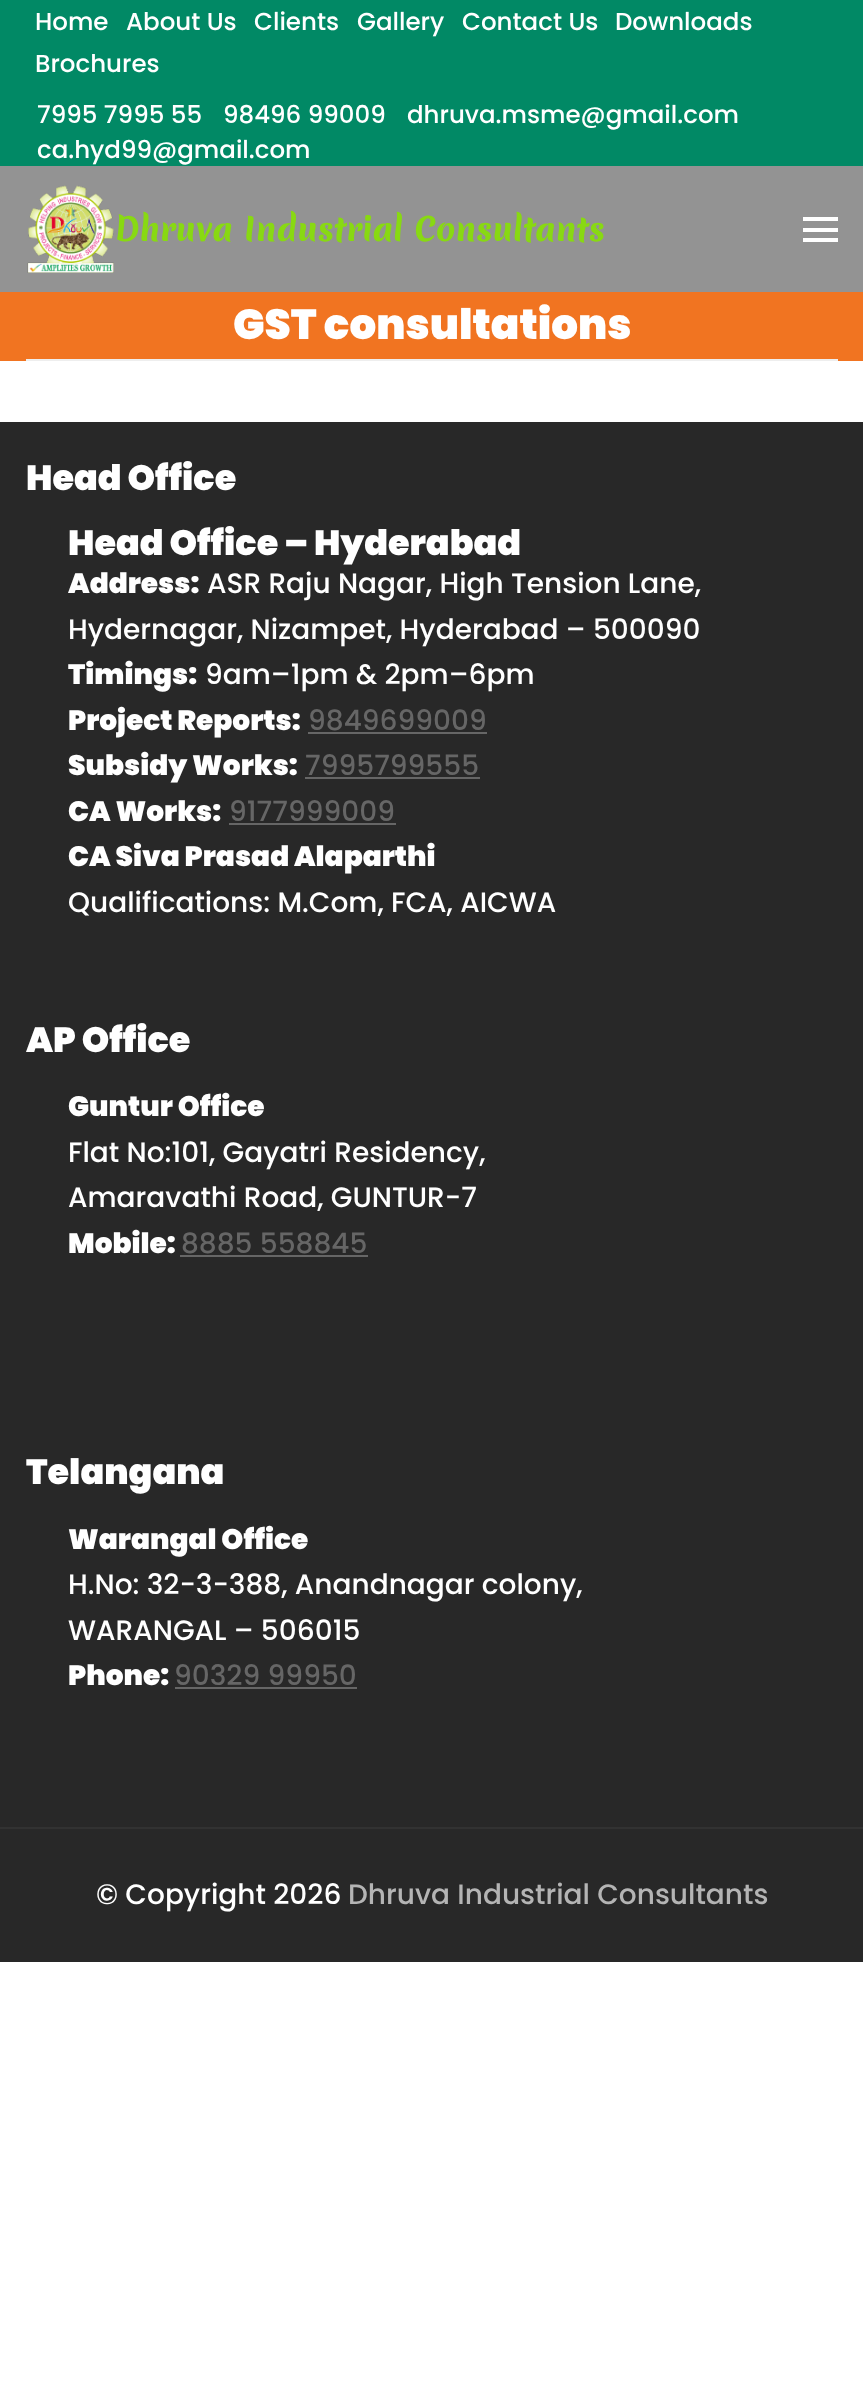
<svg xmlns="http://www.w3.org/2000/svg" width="863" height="2405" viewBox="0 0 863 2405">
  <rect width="100%" height="100%" fill="#ffffff"/>
  <rect x="0" y="0" width="863" height="166" fill="#018965"/>
  <text x="35" y="30" font-family="Poppins" font-size="24.5" font-weight="500" fill="#ffffff">Home</text>
  <text x="126" y="30" font-family="Poppins" font-size="24.5" font-weight="500" fill="#ffffff">About Us</text>
  <text x="254" y="30" font-family="Poppins" font-size="24.5" font-weight="500" fill="#ffffff">Clients</text>
  <text x="357" y="30" font-family="Poppins" font-size="24.5" font-weight="500" fill="#ffffff">Gallery</text>
  <text x="462" y="30" font-family="Poppins" font-size="24.5" font-weight="500" fill="#ffffff">Contact Us</text>
  <text x="615" y="30" font-family="Poppins" font-size="24.5" font-weight="500" fill="#ffffff">Downloads</text>
  <text x="35" y="72" font-family="Poppins" font-size="24.5" font-weight="500" fill="#ffffff">Brochures</text>
  <text x="37" y="123" font-family="Poppins" font-size="24.5" font-weight="500" fill="#ffffff">7995 7995 55</text>
  <text x="223" y="123" font-family="Poppins" font-size="24.5" font-weight="500" fill="#ffffff">98496 99009</text>
  <text x="407" y="123" font-family="Poppins" font-size="24.5" font-weight="500" fill="#ffffff">dhruva.msme@gmail.com</text>
  <text x="37" y="158" font-family="Poppins" font-size="24.5" font-weight="500" fill="#ffffff">ca.hyd99@gmail.com</text>
  <rect x="0" y="166" width="863" height="126" fill="#939393"/>
  <image x="27" y="185" width="87" height="88" href="img1.png"/>
  <text x="115" y="241" word-spacing="2" font-family="Merienda" font-size="31.5" font-weight="800" fill="#88d912">Dhruva Industrial Consultants</text>
  <rect x="803" y="217" width="35" height="4" fill="#ffffff"/>
  <rect x="803" y="228" width="35" height="4" fill="#ffffff"/>
  <rect x="803" y="238" width="35" height="4" fill="#ffffff"/>
  <rect x="0" y="292" width="863" height="69" fill="#f17421"/>
  <rect x="26" y="359" width="812" height="2" fill="#eeeeee"/>
  <text x="233" y="339" font-family="Poppins" font-size="42" font-weight="900" fill="#ffffff">GST consultations</text>
  <rect x="0" y="422" width="863" height="1540" fill="#282828"/>
  <rect x="0" y="1827" width="863" height="2" fill="#323232"/>
  <text x="26" y="490" font-family="Poppins" font-size="35" font-weight="900" fill="#ffffff">Head Office</text>
  <text x="68" y="555" font-family="Poppins" font-size="35" font-weight="900" fill="#ffffff">Head Office – Hyderabad</text>
  <text x="68" y="593" font-family="Poppins" font-size="28" font-weight="900" fill="#ffffff">Address:</text>
  <text x="207" y="593" font-family="Poppins" font-size="28" font-weight="500" fill="#ffffff">ASR Raju Nagar, High Tension Lane,</text>
  <text x="68" y="639" font-family="Poppins" font-size="28" font-weight="500" fill="#ffffff">Hydernagar, Nizampet, Hyderabad – 500090</text>
  <text x="68" y="684" font-family="Poppins" font-size="28" font-weight="900" fill="#ffffff">Timings:</text>
  <text x="205" y="684" font-family="Poppins" font-size="28" font-weight="500" fill="#ffffff">9am–1pm &amp; 2pm–6pm</text>
  <text x="68" y="730" font-family="Poppins" font-size="28" font-weight="900" fill="#ffffff">Project Reports:</text>
  <text x="308" y="730" font-family="Poppins" font-size="28" font-weight="500" fill="#666666">9849699009</text>
  <rect x="308" y="732" width="179" height="2" fill="#666666"/>
  <text x="68" y="775" font-family="Poppins" font-size="28" font-weight="900" fill="#ffffff">Subsidy Works:</text>
  <text x="305" y="775" font-family="Poppins" font-size="28" font-weight="500" fill="#666666">7995799555</text>
  <rect x="305" y="777" width="175" height="2" fill="#666666"/>
  <text x="68" y="821" font-family="Poppins" font-size="28" font-weight="900" fill="#ffffff">CA Works:</text>
  <text x="229" y="821" font-family="Poppins" font-size="28" font-weight="500" fill="#666666">9177999009</text>
  <rect x="229" y="823" width="167" height="2" fill="#666666"/>
  <text x="68" y="866" font-family="Poppins" font-size="28" font-weight="900" fill="#ffffff">CA Siva Prasad Alaparthi</text>
  <text x="68" y="912" font-family="Poppins" font-size="28" font-weight="500" fill="#ffffff">Qualifications: M.Com, FCA, AICWA</text>
  <text x="26" y="1052" font-family="Poppins" font-size="35" font-weight="900" fill="#ffffff">AP Office</text>
  <text x="68" y="1116" font-family="Poppins" font-size="28" font-weight="900" fill="#ffffff">Guntur Office</text>
  <text x="68" y="1162" font-family="Poppins" font-size="28" font-weight="500" fill="#ffffff">Flat No:101, Gayatri Residency,</text>
  <text x="68" y="1207" font-family="Poppins" font-size="28" font-weight="500" fill="#ffffff">Amaravathi Road, GUNTUR-7</text>
  <text x="68" y="1253" font-family="Poppins" font-size="28" font-weight="900" fill="#ffffff">Mobile:</text>
  <text x="181" y="1253" font-family="Poppins" font-size="28" font-weight="500" fill="#666666">8885 558845</text>
  <rect x="180" y="1255" width="188" height="2" fill="#666666"/>
  <text x="26" y="1484" font-family="Poppins" font-size="35" font-weight="900" fill="#ffffff">Telangana</text>
  <text x="68" y="1549" font-family="Poppins" font-size="28" font-weight="900" fill="#ffffff">Warangal Office</text>
  <text x="68" y="1594" font-family="Poppins" font-size="28" font-weight="500" fill="#ffffff">H.No: 32-3-388, Anandnagar colony,</text>
  <text x="68" y="1640" font-family="Poppins" font-size="28" font-weight="500" fill="#ffffff">WARANGAL – 506015</text>
  <text x="68" y="1685" font-family="Poppins" font-size="28" font-weight="900" fill="#ffffff">Phone:</text>
  <text x="174" y="1685" font-family="Poppins" font-size="28" font-weight="500" fill="#666666">90329 99950</text>
  <rect x="175" y="1687" width="182" height="2" fill="#666666"/>
  <text x="96" y="1904" font-family="Poppins" font-size="28" font-weight="500" fill="#ffffff">© Copyright 2026</text>
  <text x="348" y="1904" font-family="Poppins" font-size="28" font-weight="500" fill="#b4b4b4">Dhruva Industrial Consultants</text>
</svg>
